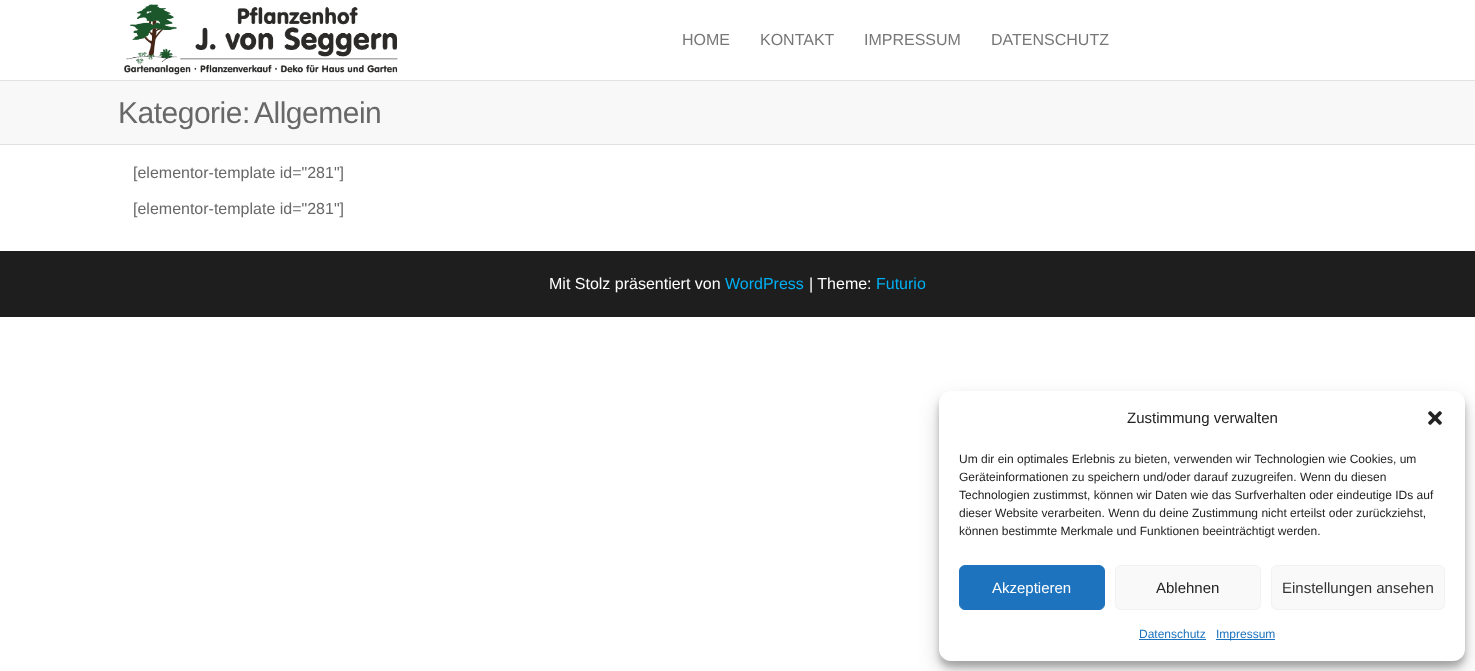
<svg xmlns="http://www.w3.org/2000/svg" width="1475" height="671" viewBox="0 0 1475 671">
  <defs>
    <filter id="blur1" x="-50%" y="-200%" width="200%" height="500%"><feGaussianBlur stdDeviation="3"/></filter>
    <filter id="blur2" x="-50%" y="-200%" width="200%" height="500%"><feGaussianBlur stdDeviation="10"/></filter>
  </defs>
  <rect width="100%" height="100%" fill="#ffffff"/>
  <rect x="0" y="80" width="1475" height="1" fill="#e2e2e2"/>
  <image x="124" y="4" width="274" height="71" href="img1.png"/>
  <text x="682" y="45" font-family="Liberation Sans" font-size="16" fill="#777777">HOME</text>
  <text x="760" y="45" font-family="Liberation Sans" font-size="16" fill="#777777">KONTAKT</text>
  <text x="864" y="45" font-family="Liberation Sans" font-size="16" fill="#777777">IMPRESSUM</text>
  <text x="991" y="45" font-family="Liberation Sans" font-size="16" fill="#777777">DATENSCHUTZ</text>
  <rect x="0" y="81" width="1475" height="63" fill="#f8f8f8"/>
  <rect x="0" y="144" width="1475" height="1" fill="#e2e2e2"/>
  <text x="118" y="123" font-family="Liberation Sans" font-size="30" letter-spacing="-0.5" fill="#686868">Kategorie:</text>
  <text x="254" y="123" font-family="Liberation Sans" font-size="30" letter-spacing="-0.5" fill="#686868">Allgemein</text>
  <text x="133" y="178" font-family="Liberation Sans" font-size="16" fill="#686868">[elementor-template id="281"]</text>
  <text x="133" y="214" font-family="Liberation Sans" font-size="16" fill="#686868">[elementor-template id="281"]</text>
  <rect x="0" y="251" width="1475" height="66" fill="#1e1e1e"/>
  <text x="549" y="289" font-family="Liberation Sans" font-size="16" fill="#ffffff">Mit Stolz präsentiert von</text>
  <text x="725" y="289" font-family="Liberation Sans" font-size="16" fill="#00aff2">WordPress</text>
  <text x="809" y="289" font-family="Liberation Sans" font-size="16" fill="#ffffff">| Theme:</text>
  <text x="876" y="289" font-family="Liberation Sans" font-size="16" fill="#00aff2">Futurio</text>
  <rect x="939" y="397" width="526" height="270" rx="12" fill="#000000" fill-opacity="0.23" filter="url(#blur1)"/>
  <rect x="939" y="401" width="526" height="270" rx="12" fill="#000000" fill-opacity="0.19" filter="url(#blur2)"/>
  <rect x="939" y="391" width="526" height="270" rx="12" fill="#ffffff"/>
  <text x="1127" y="423" font-family="Liberation Sans" font-size="15" fill="#222222">Zustimmung verwalten</text>
  <image x="1428" y="411" width="14" height="14" href="img2.png"/>
  <text x="959" y="463" font-family="Liberation Sans" font-size="12" fill="#222222">Um dir ein optimales Erlebnis zu bieten, verwenden wir Technologien wie Cookies, um</text>
  <text x="959" y="481" font-family="Liberation Sans" font-size="12" fill="#222222">Geräteinformationen zu speichern und/oder darauf zuzugreifen. Wenn du diesen</text>
  <text x="959" y="499" font-family="Liberation Sans" font-size="12" fill="#222222">Technologien zustimmst, können wir Daten wie das Surfverhalten oder eindeutige IDs auf</text>
  <text x="959" y="517" font-family="Liberation Sans" font-size="12" fill="#222222">dieser Website verarbeiten. Wenn du deine Zustimmung nicht erteilst oder zurückziehst,</text>
  <text x="959" y="535" font-family="Liberation Sans" font-size="12" fill="#222222">können bestimmte Merkmale und Funktionen beeinträchtigt werden.</text>
  <rect x="959.5" y="565.5" width="145" height="44" rx="5.5" fill="#1e73be" stroke="#1e73be"/>
  <text x="992" y="593" font-family="Liberation Sans" font-size="15" fill="#ffffff">Akzeptieren</text>
  <rect x="1115.5" y="565.5" width="145" height="44" rx="5.5" fill="#f9f9f9" stroke="#f2f2f2"/>
  <text x="1156" y="593" font-family="Liberation Sans" font-size="15" fill="#222222">Ablehnen</text>
  <rect x="1271.5" y="565.5" width="173" height="44" rx="5.5" fill="#f9f9f9" stroke="#f2f2f2"/>
  <text x="1282" y="593" font-family="Liberation Sans" font-size="15" fill="#333333">Einstellungen ansehen</text>
  <text x="1139" y="638" font-family="Liberation Sans" font-size="12" fill="#1e73be">Datenschutz</text>
  <rect x="1139" y="639" width="67" height="1" fill="#1e73be"/>
  <rect x="1216" y="639" width="59" height="1" fill="#1e73be"/>
  <text x="1216" y="638" font-family="Liberation Sans" font-size="12" fill="#1e73be">Impressum</text>
</svg>
